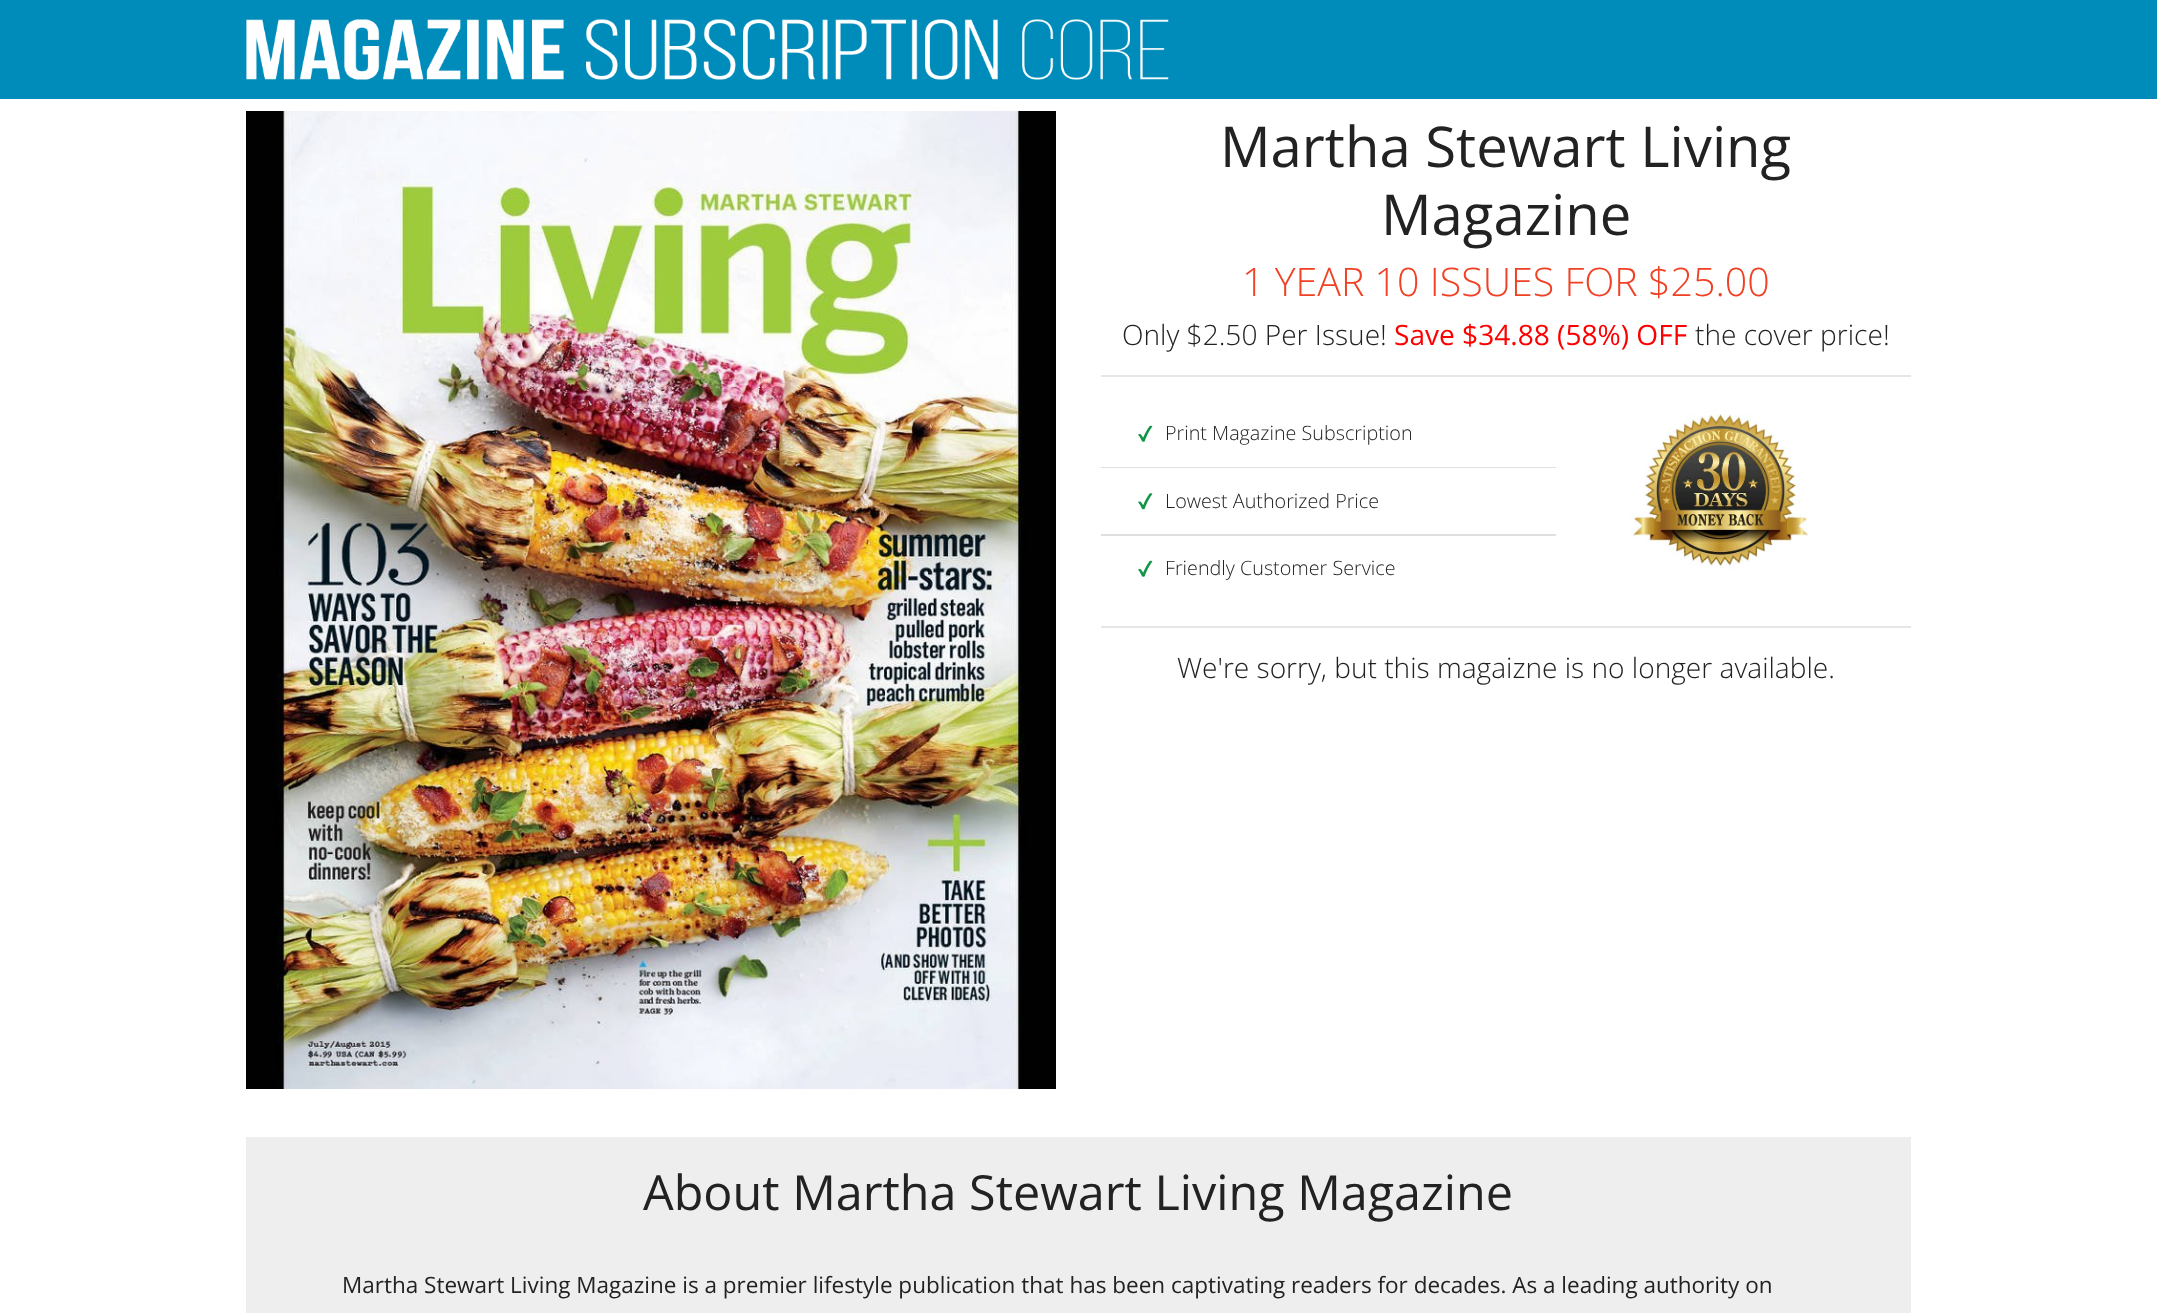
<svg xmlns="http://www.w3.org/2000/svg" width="2157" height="1313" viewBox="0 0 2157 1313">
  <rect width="100%" height="100%" fill="#ffffff"/>
  <rect x="0" y="0" width="2157" height="99" fill="#008cba"/>
  <image x="246" y="19" width="923" height="61" href="img1.png"/>
  <image x="246" y="111" width="810" height="978" href="img2.png"/>
  <text x="1220" y="167" font-family="Open Sans" font-size="56.25" fill="#222222">Martha Stewart Living</text>
  <text x="1381" y="235" font-family="Open Sans" font-size="56.25" fill="#222222">Magazine</text>
  <text x="1242" y="296" font-family="Open Sans" font-size="39.4" font-weight="300" fill="#f04124">1 YEAR 10 ISSUES FOR $25.00</text>
  <text x="1122" y="345" font-family="Open Sans" font-size="28.1" font-weight="300" fill="#222222">Only $2.50 Per Issue!</text>
  <text x="1394" y="345" font-family="Open Sans" font-size="28.1" fill="#ff0000">Save $34.88 (58%) OFF</text>
  <text x="1695" y="345" font-family="Open Sans" font-size="28.1" font-weight="300" fill="#222222">the cover price!</text>
  <rect x="1101" y="375" width="810" height="2" fill="#e6e6e6"/>
  <rect x="1101" y="467" width="455" height="1" fill="#dfdfdf"/>
  <image x="1138" y="425" width="15" height="17" href="img3.png"/>
  <text x="1165" y="440" font-family="Open Sans" font-size="19.75" font-weight="300" fill="#222222">Print Magazine Subscription</text>
  <rect x="1101" y="534" width="455" height="2" fill="#dfdfdf"/>
  <image x="1138" y="493" width="15" height="17" href="img4.png"/>
  <text x="1165" y="508" font-family="Open Sans" font-size="19.75" font-weight="300" fill="#222222">Lowest Authorized Price</text>
  <image x="1138" y="560" width="15" height="17" href="img3.png"/>
  <text x="1165" y="575" font-family="Open Sans" font-size="19.75" font-weight="300" fill="#222222">Friendly Customer Service</text>
  <image x="1630" y="414" width="179" height="156" href="img5.png"/>
  <rect x="1101" y="626" width="810" height="2" fill="#e6e6e6"/>
  <text x="1177" y="678" font-family="Open Sans" font-size="28.1" font-weight="300" fill="#222222">We're sorry, but this magaizne is no longer available.</text>
  <rect x="246" y="1137" width="1665" height="176" fill="#eeeeee"/>
  <text x="643" y="1210" font-family="Open Sans" font-size="48.5" fill="#222222">About Martha Stewart Living Magazine</text>
  <text x="342" y="1293" font-family="Open Sans" font-size="22.5" fill="#222222">Martha Stewart Living Magazine is a premier lifestyle publication that has been captivating readers for decades. As a leading authority on</text>
</svg>
